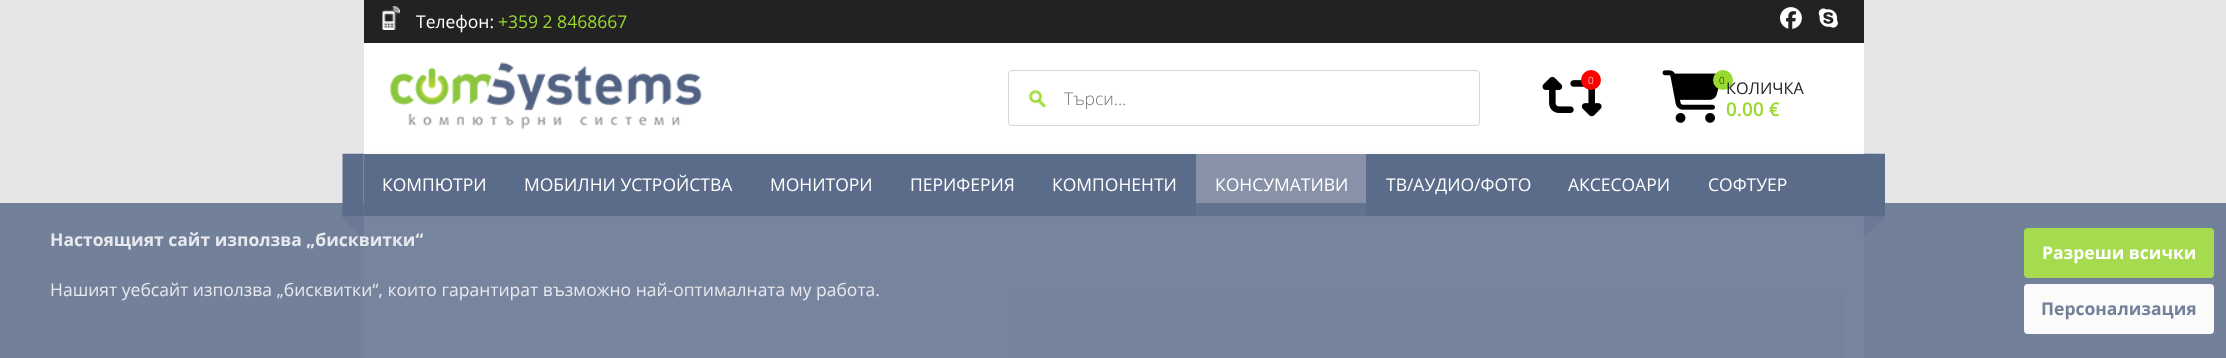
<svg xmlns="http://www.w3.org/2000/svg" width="2226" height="358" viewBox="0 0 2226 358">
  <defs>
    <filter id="blur1" x="-50%" y="-200%" width="200%" height="500%"><feGaussianBlur stdDeviation="3"/></filter>
  </defs>
  <rect width="100%" height="100%" fill="#e6e6e6"/>
  <rect x="364" y="0" width="1500" height="43" fill="#222222"/>
  <image x="382" y="6" width="18" height="24" href="img1.png"/>
  <text x="416" y="28" font-family="Open Sans" font-size="17.5" fill="#ffffff">Телефон:</text>
  <text x="498" y="28" font-family="Open Sans" font-size="17.5" fill="#9ad930">+359 2 8468667</text>
  <image x="1780" y="7" width="22" height="22" href="img2.png"/>
  <image x="1818" y="8" width="20" height="20" href="img3.png"/>
  <rect x="364" y="43" width="1500" height="111" fill="#ffffff"/>
  <image x="389" y="62" width="313" height="67" href="img4.png"/>
  <image x="1028" y="89" width="19" height="19" href="img5.png"/>
  <rect x="1008.5" y="70.5" width="471" height="55" rx="3.5" fill="none" stroke="#d6d6d6"/>
  <text x="1064" y="105" font-family="Open Sans" font-size="17.5" font-weight="300" fill="#757575">Търси...</text>
  <image x="1542" y="76" width="60" height="41" href="img6.png"/>
  <circle cx="1591" cy="80" r="10" fill="#ff0000"/>
  <text x="1588" y="84" font-family="Open Sans" font-size="10" font-weight="300" fill="#ffffff">0</text>
  <image x="1662" y="70" width="57" height="53" href="img7.png"/>
  <circle cx="1723" cy="80" r="10" fill="#9ad930"/>
  <text x="1719" y="84" font-family="Open Sans" font-size="10" font-weight="300" fill="#000000">0</text>
  <text x="1726" y="94" font-family="Open Sans" font-size="16.25" fill="#222222">КОЛИЧКА</text>
  <text x="1726" y="116" font-family="Open Sans" font-size="19" font-weight="600" fill="#9ad930">0.00 €</text>
  <rect x="364" y="216" width="1500" height="142" fill="#ffffff"/>
  <rect x="364" y="155" width="1500" height="63" fill="#000000" fill-opacity="0.07" filter="url(#blur1)"/>
  <image x="342" y="153" width="22" height="85" href="img8.png"/>
  <rect x="364" y="154" width="1500" height="62" fill="#5b6b8a"/>
  <text x="382" y="191" font-family="Open Sans" font-size="17.5" fill="#ffffff">КОМПЮТРИ</text>
  <text x="524" y="191" font-family="Open Sans" font-size="17.5" fill="#ffffff">МОБИЛНИ УСТРОЙСТВА</text>
  <text x="770" y="191" font-family="Open Sans" font-size="17.5" fill="#ffffff">МОНИТОРИ</text>
  <text x="910" y="191" font-family="Open Sans" font-size="17.5" fill="#ffffff">ПЕРИФЕРИЯ</text>
  <text x="1052" y="191" font-family="Open Sans" font-size="17.5" fill="#ffffff">КОМПОНЕНТИ</text>
  <rect x="1196" y="154" width="170" height="62" fill="#8792a8"/>
  <text x="1215" y="191" font-family="Open Sans" font-size="17.5" fill="#ffffff">КОНСУМАТИВИ</text>
  <text x="1386" y="191" font-family="Open Sans" font-size="17.5" fill="#ffffff">ТВ/АУДИО/ФОТО</text>
  <text x="1568" y="191" font-family="Open Sans" font-size="17.5" fill="#ffffff">АКСЕСОАРИ</text>
  <text x="1708" y="191" font-family="Open Sans" font-size="17.5" fill="#ffffff">СОФТУЕР</text>
  <image x="1863" y="153" width="22" height="85" href="img9.png"/>
  <rect x="1008" y="290" width="837" height="68" fill="#f4f4f4"/>
  <rect x="0" y="203" width="2226" height="155" fill="#5b6b8a" fill-opacity="0.83"/>
  <text x="50" y="246" font-family="Open Sans" font-size="17.5" font-weight="bold" fill="#e7e9ee">Настоящият сайт използва „бисквитки“</text>
  <text x="50" y="296" font-family="Open Sans" font-size="17.5" fill="#e7e9ee">Нашият уебсайт използва „бисквитки“, които гарантират възможно най-оптималната му работа.</text>
  <rect x="2024" y="228" width="190" height="50" rx="4" fill="#a7db4f"/>
  <text x="2042" y="259" font-family="Open Sans" font-size="17.5" font-weight="bold" fill="#ffffff">Разреши всички</text>
  <rect x="2024" y="284" width="190" height="50" rx="4" fill="#fbfbfb"/>
  <text x="2041" y="315" font-family="Open Sans" font-size="17.5" font-weight="bold" fill="#73809a">Персонализация</text>
</svg>
